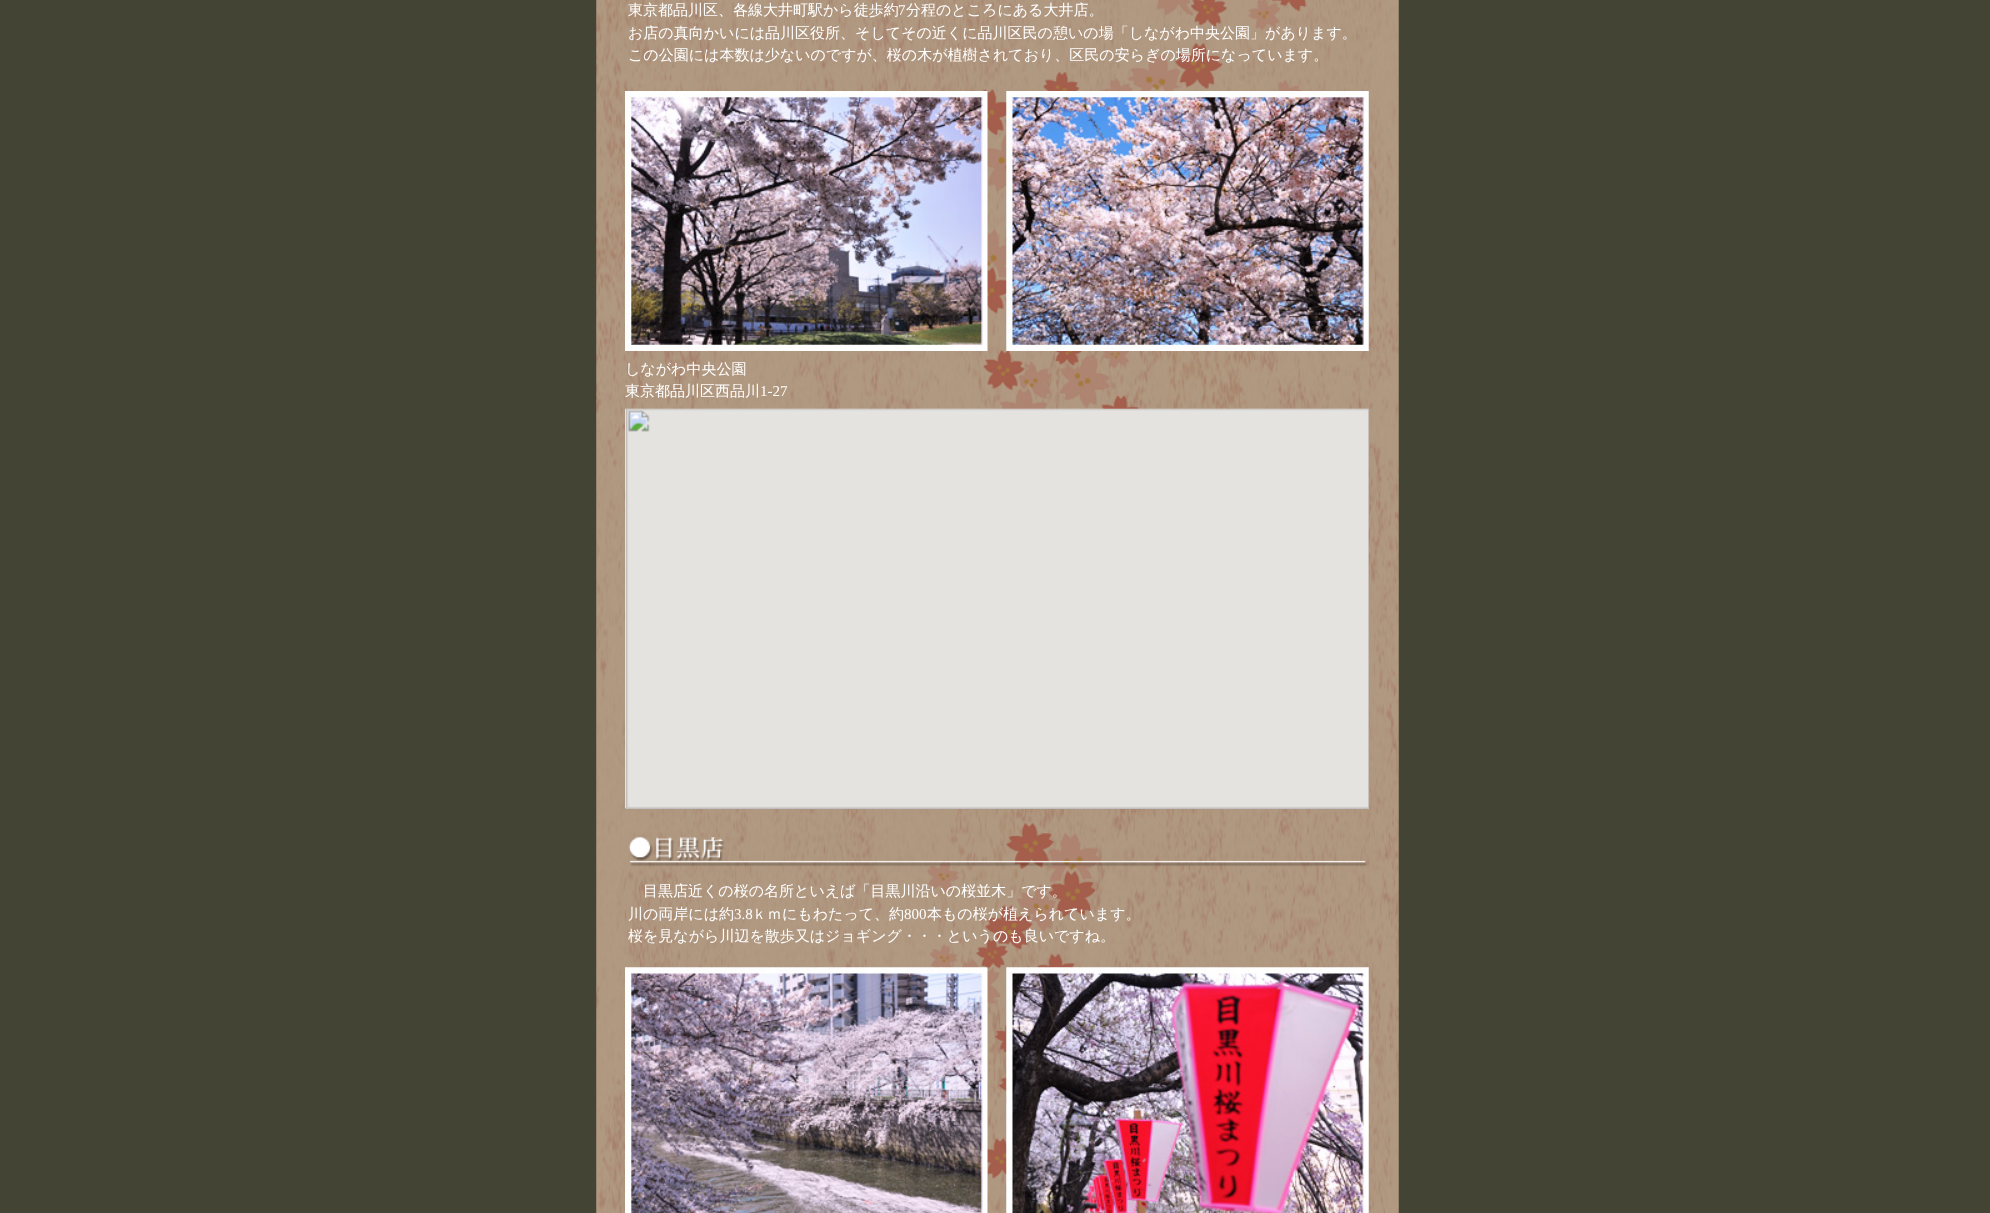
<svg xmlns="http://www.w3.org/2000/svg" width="1990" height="1213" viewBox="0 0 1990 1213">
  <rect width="100%" height="100%" fill="#444435"/>
  <image x="596" y="0" width="803" height="1213" href="img1.png"/>
  <text x="628" y="15" font-family="WenQuanYi Zen Hei" font-size="15" font-weight="500" fill="#ffffff">東京都品川区、各線大井町駅から徒歩約</text>
  <text x="898" y="15" font-family="Liberation Serif" font-size="15" fill="#ffffff">7</text>
  <text x="906" y="15" font-family="WenQuanYi Zen Hei" font-size="15" font-weight="500" fill="#ffffff">分程のところにある大井店。</text>
  <text x="628" y="38" font-family="WenQuanYi Zen Hei" font-size="15" font-weight="500" fill="#ffffff">お店の真向かいには品川区役所、そしてその近くに品川区民の憩いの場「しながわ中央公園」があります。</text>
  <text x="628" y="60" font-family="WenQuanYi Zen Hei" font-size="15" font-weight="500" fill="#ffffff">この公園には本数は少ないのですが、桜の木が植樹されており、区民の安らぎの場所になっています。</text>
  <image x="625" y="91" width="363" height="260" href="img2.png"/>
  <image x="1006" y="91" width="363" height="260" href="img3.png"/>
  <text x="625" y="374" font-family="WenQuanYi Zen Hei" font-size="15" font-weight="500" fill="#ffffff">しながわ中央公園</text>
  <text x="625" y="396" font-family="WenQuanYi Zen Hei" font-size="15" font-weight="500" fill="#ffffff">東京都品川区西品川</text>
  <text x="760" y="396" font-family="Liberation Serif" font-size="15" fill="#ffffff">1-27</text>
  <image x="625" y="408" width="744" height="401" href="img4.png"/>
  <image x="628" y="833" width="740" height="35" href="img5.png"/>
  <text x="643" y="896" font-family="WenQuanYi Zen Hei" font-size="15" font-weight="500" fill="#ffffff">目黒店近くの桜の名所といえば「目黒川沿いの桜並木」です。</text>
  <text x="628" y="919" font-family="WenQuanYi Zen Hei" font-size="15" font-weight="500" fill="#ffffff">川の両岸には約</text>
  <text x="734" y="919" font-family="Liberation Serif" font-size="15" fill="#ffffff">3.8</text>
  <text x="752" y="919" font-family="WenQuanYi Zen Hei" font-size="15" font-weight="500" fill="#ffffff">ｋｍにもわたって、約</text>
  <text x="904" y="919" font-family="Liberation Serif" font-size="15" fill="#ffffff">800</text>
  <text x="927" y="919" font-family="WenQuanYi Zen Hei" font-size="15" font-weight="500" fill="#ffffff">本もの桜が植えられています。</text>
  <text x="628" y="941" font-family="WenQuanYi Zen Hei" font-size="15" font-weight="500" fill="#ffffff">桜を見ながら川辺を散歩又はジョギング・・・というのも良いですね。</text>
  <image x="625" y="967" width="363" height="246" href="img6.png"/>
  <image x="1006" y="967" width="363" height="246" href="img7.png"/>
</svg>
